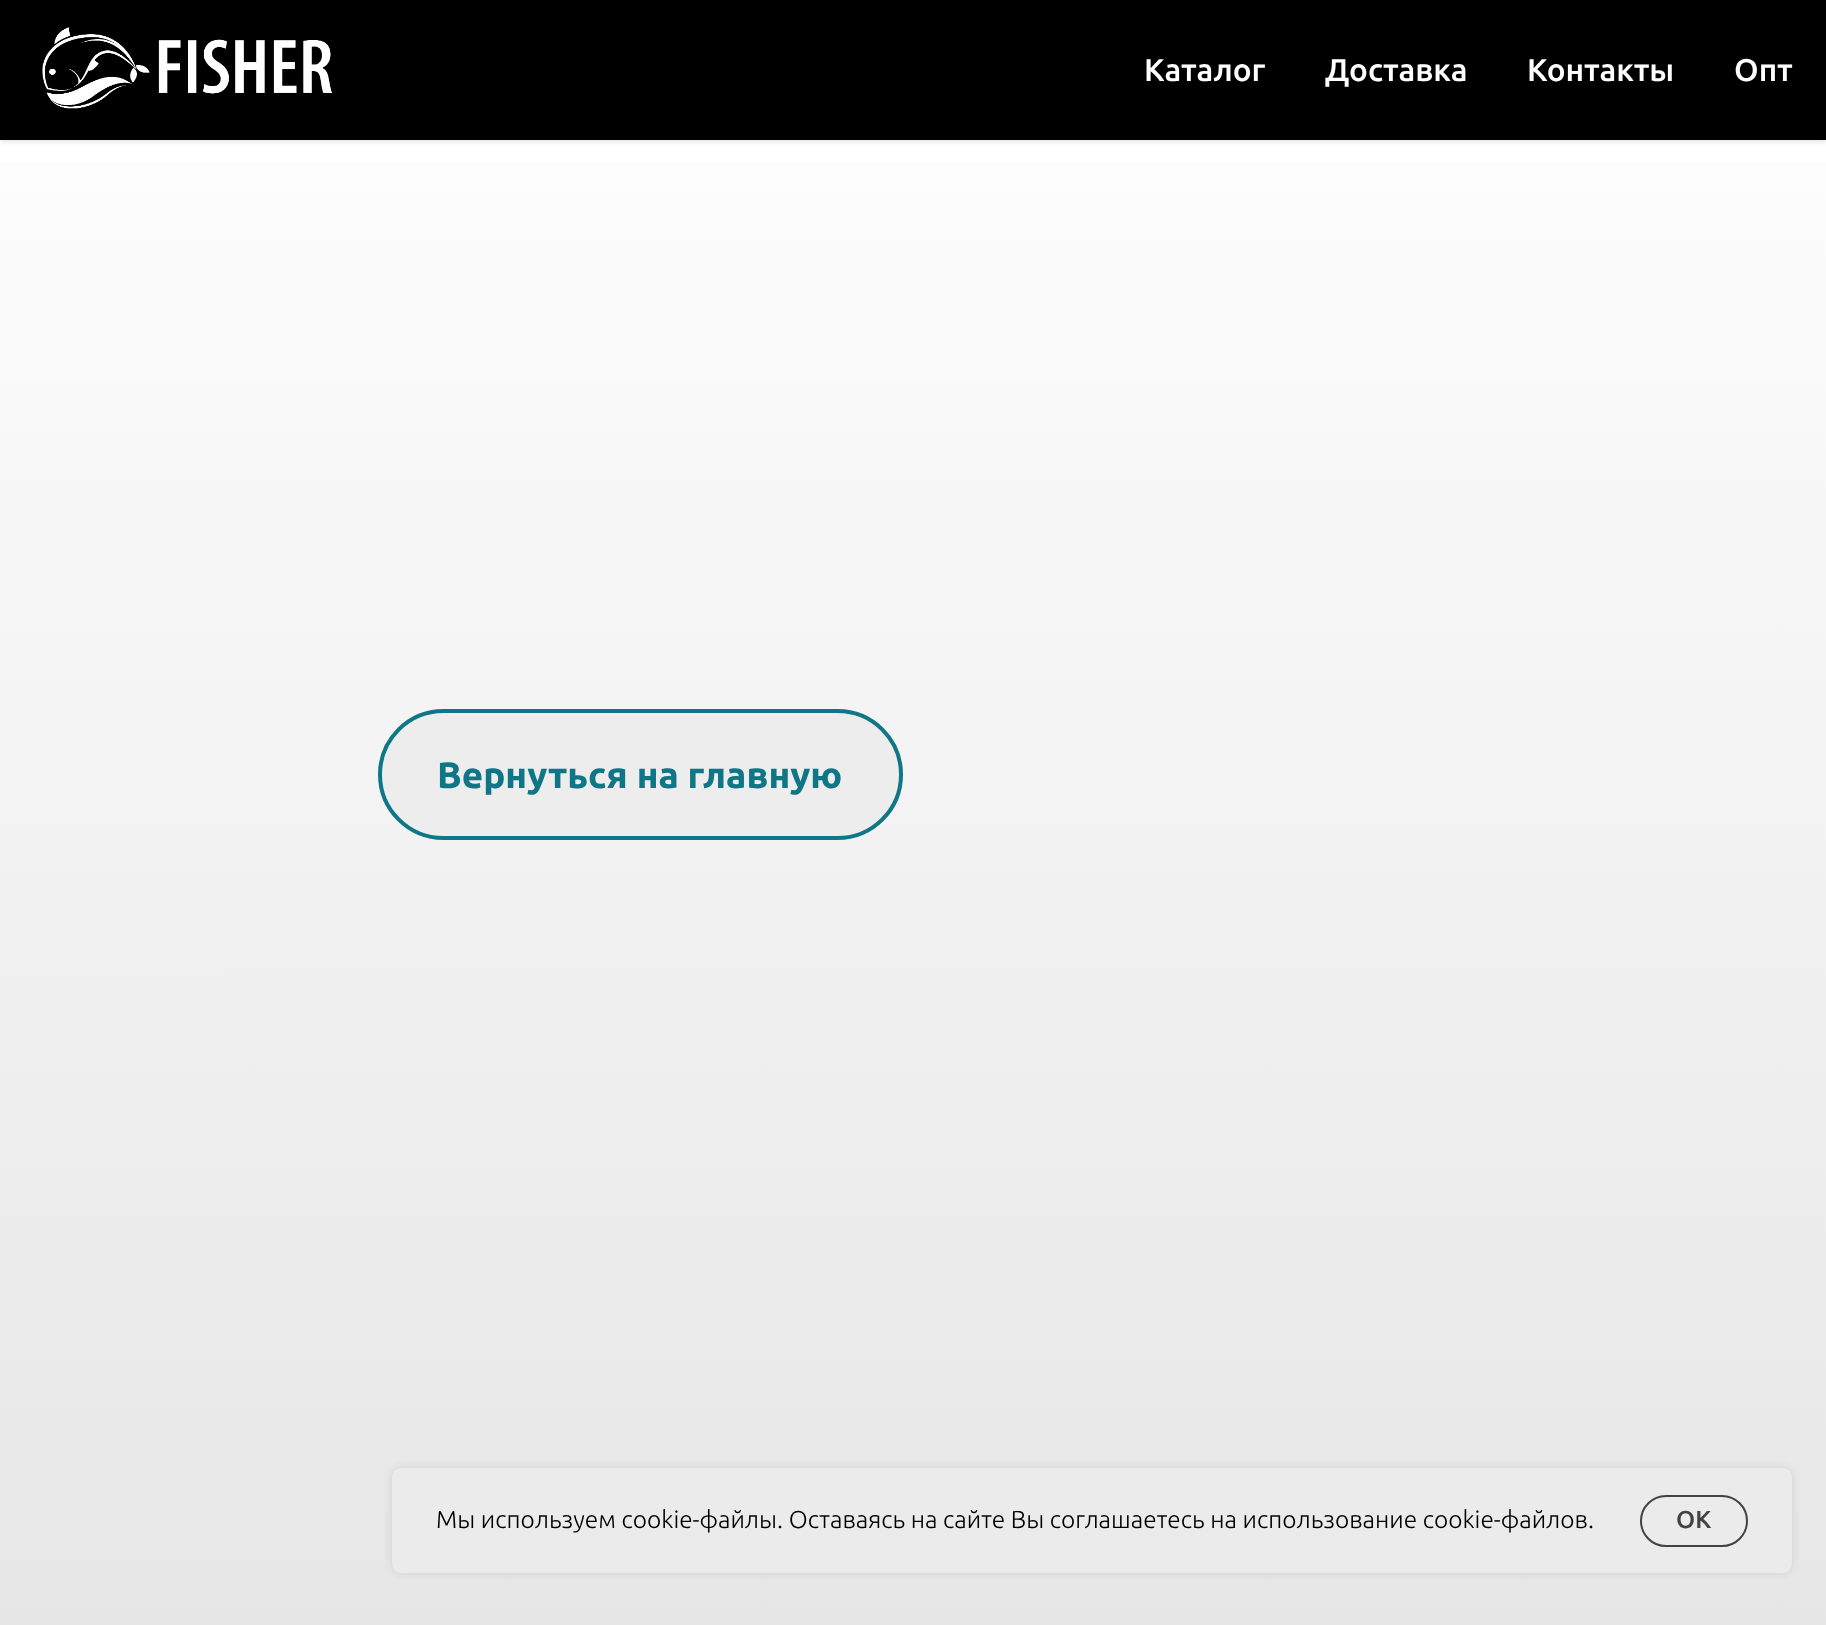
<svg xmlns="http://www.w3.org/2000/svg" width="1826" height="1625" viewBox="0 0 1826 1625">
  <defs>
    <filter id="blur1" x="-50%" y="-200%" width="200%" height="500%"><feGaussianBlur stdDeviation="2.5"/></filter>
    <linearGradient id="g1" gradientUnits="userSpaceOnUse" x1="913" y1="0" x2="914" y2="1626"><stop offset="0" stop-color="#ffffff"/><stop offset="1" stop-color="#e6e6e6"/></linearGradient>
    <filter id="blur2" x="-50%" y="-200%" width="200%" height="500%"><feGaussianBlur stdDeviation="4.5"/></filter>
  </defs>
  <rect width="100%" height="100%" fill="#ffffff"/>
  <rect x="0" y="2" width="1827" height="140" fill="#000000" fill-opacity="0.1" filter="url(#blur1)"/>
  <rect x="0" y="0" width="1826" height="140" fill="#000000"/>
  <image x="42" y="27" width="290" height="82" href="img1.png"/>
  <text x="1144" y="81" font-family="Ubuntu" font-size="31.5" font-weight="500" fill="#ffffff">Каталог</text>
  <text x="1325" y="81" font-family="Ubuntu" font-size="31.5" font-weight="500" fill="#ffffff">Доставка</text>
  <text x="1527" y="81" font-family="Ubuntu" font-size="31.5" font-weight="500" fill="#ffffff">Контакты</text>
  <text x="1734" y="81" font-family="Ubuntu" font-size="31.5" font-weight="500" fill="#ffffff">Опт</text>
  <rect x="0" y="162" width="1826" height="1463" fill="url(#g1)"/>
  <rect x="392" y="1468" width="1400" height="105" rx="9" fill="#000000" fill-opacity="0.1" filter="url(#blur2)"/>
  <rect x="392" y="1468" width="1400" height="105" rx="9" fill="#ebebeb"/>
  <text x="436" y="1528" font-family="Ubuntu" font-size="24.5" font-weight="300" fill="#000000">Мы используем cookie-файлы. Оставаясь на сайте Вы соглашаетесь на использование cookie-файлов.</text>
  <rect x="1641" y="1496" width="106" height="50" rx="25" fill="none" stroke="#424242" stroke-width="2"/>
  <text x="1676" y="1528" font-family="Ubuntu" font-size="24.5" font-weight="500" fill="#424242">OK</text>
  <rect x="380" y="711" width="521" height="127" rx="63.5" fill="#ededed" stroke="#0e7686" stroke-width="4"/>
  <text x="437" y="788" font-family="Ubuntu" font-size="36.75" font-weight="bold" fill="#0e7686">Вернуться на главную</text>
</svg>
